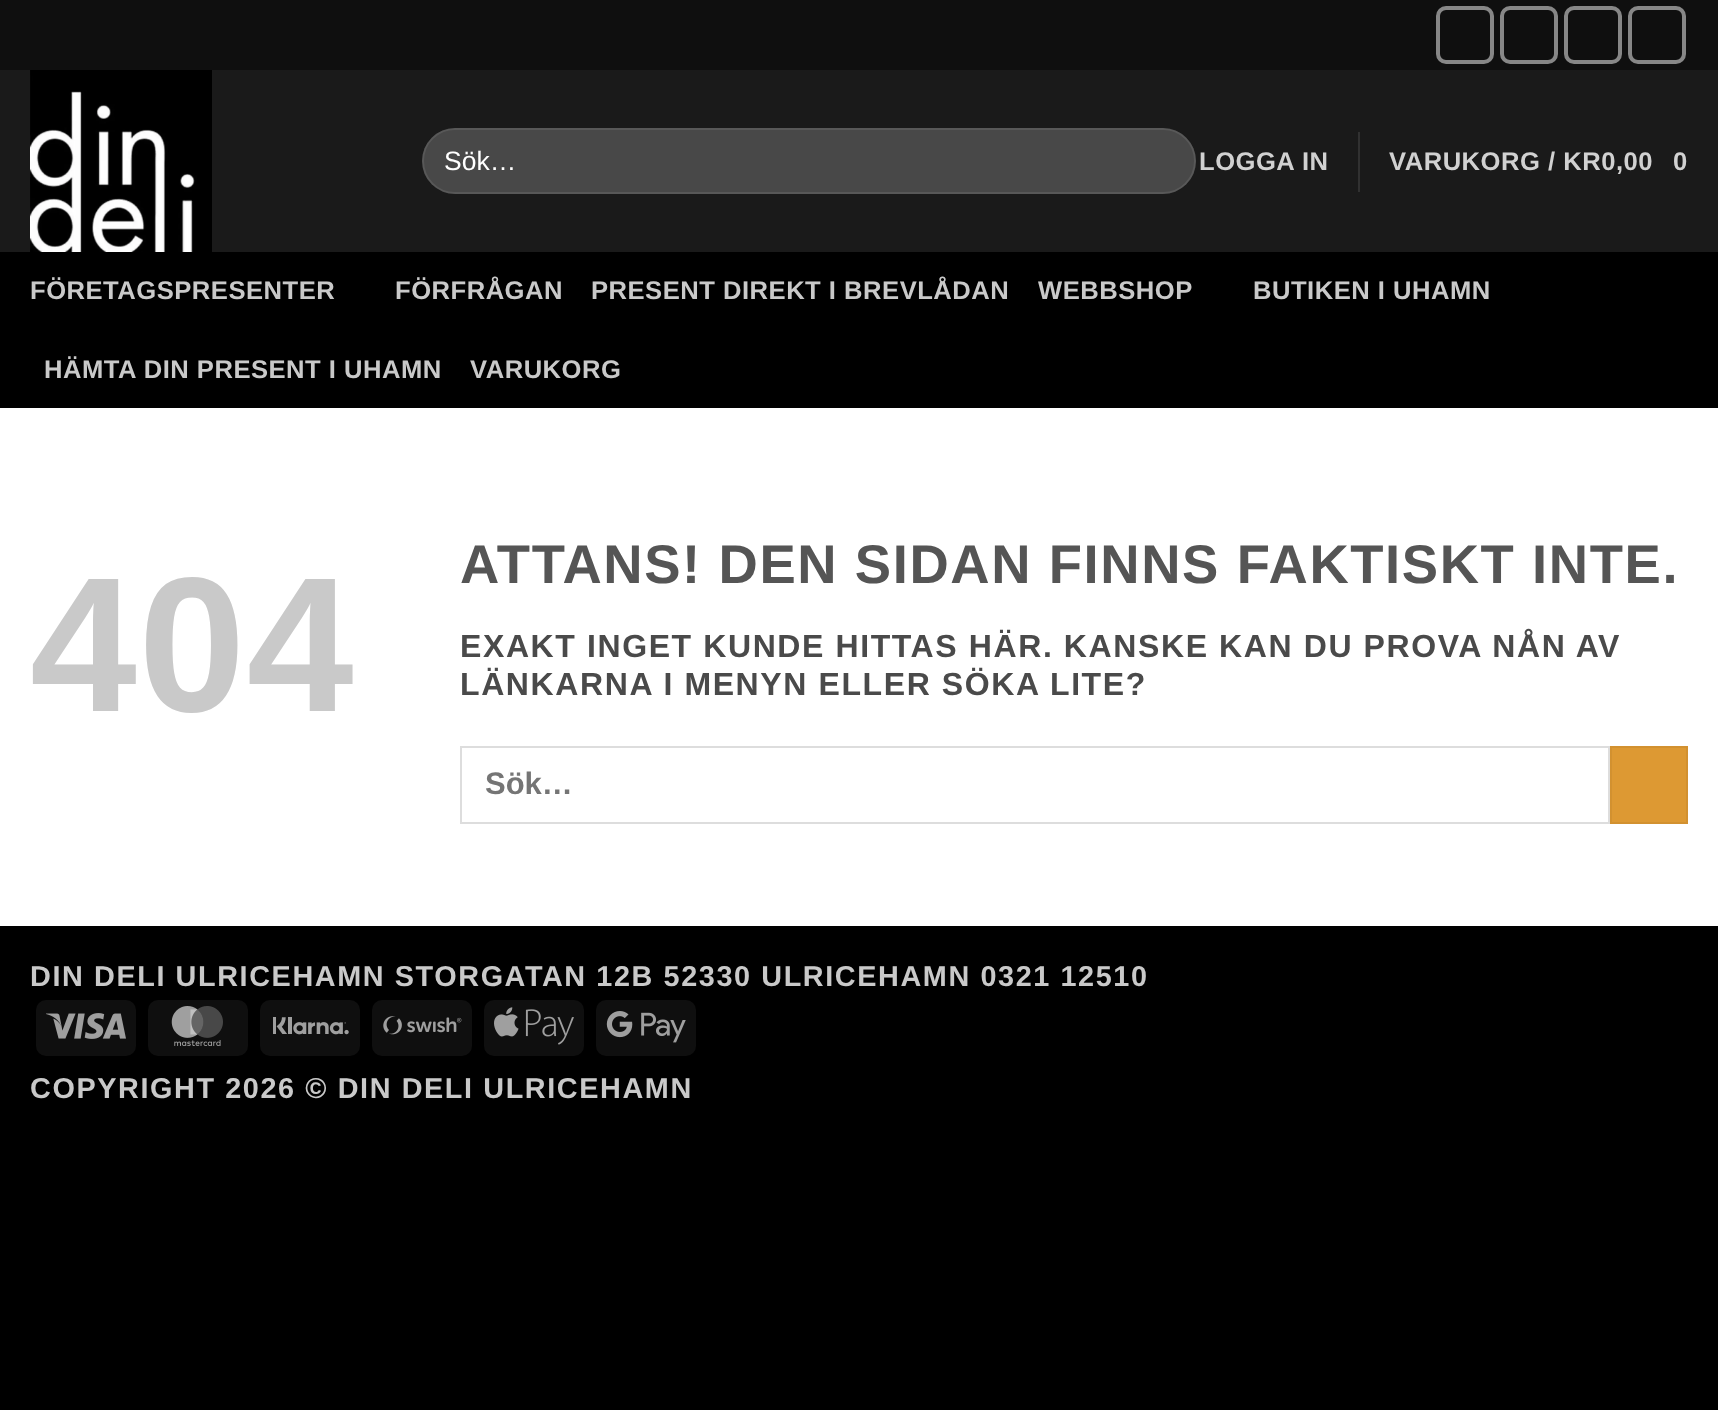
<svg xmlns="http://www.w3.org/2000/svg" width="1718" height="1410" viewBox="0 0 1718 1410">
  <rect width="100%" height="100%" fill="#000000"/>
  <rect x="0" y="408" width="1718" height="518" fill="#ffffff"/>
  <rect x="0" y="0" width="1718" height="70" fill="#0f0f0f"/>
  <rect x="1438" y="8" width="54" height="54" rx="8" fill="none" stroke="#878787" stroke-width="4"/>
  <rect x="1502" y="8" width="54" height="54" rx="8" fill="none" stroke="#878787" stroke-width="4"/>
  <rect x="1566" y="8" width="54" height="54" rx="8" fill="none" stroke="#878787" stroke-width="4"/>
  <rect x="1630" y="8" width="54" height="54" rx="8" fill="none" stroke="#878787" stroke-width="4"/>
  <rect x="0" y="70" width="1718" height="182" fill="#1a1a1a"/>
  <image x="30" y="70" width="182" height="182" href="img1.png"/>
  <rect x="422" y="128" width="774" height="66" rx="33" fill="#484848"/>
  <rect x="423" y="129" width="772" height="64" rx="32" fill="none" stroke="#ffffff" stroke-opacity="0.09" stroke-width="2"/>
  <text x="444" y="170" font-family="Liberation Sans" font-size="26.5" fill="#ffffff">Sök…</text>
  <text x="1199" y="170" font-family="Liberation Sans" font-size="25.6" font-weight="bold" letter-spacing="0.5" fill="#d1d1d1">LOGGA IN</text>
  <rect x="1358" y="132" width="2" height="60" fill="#313131"/>
  <text x="1389" y="170" font-family="Liberation Sans" font-size="25.6" font-weight="bold" letter-spacing="0.5" fill="#d1d1d1">VARUKORG / KR0,00</text>
  <text x="1673" y="170" font-family="Liberation Sans" font-size="25.6" font-weight="bold" letter-spacing="0.5" fill="#d1d1d1">0</text>
  <text x="30" y="299" font-family="Liberation Sans" font-size="25.6" font-weight="bold" letter-spacing="0.5" fill="#c9c9c9">FÖRETAGSPRESENTER</text>
  <text x="395" y="299" font-family="Liberation Sans" font-size="25.6" font-weight="bold" letter-spacing="0.5" fill="#c9c9c9">FÖRFRÅGAN</text>
  <text x="591" y="299" font-family="Liberation Sans" font-size="25.6" font-weight="bold" letter-spacing="0.5" fill="#c9c9c9">PRESENT DIREKT I BREVLÅDAN</text>
  <text x="1038" y="299" font-family="Liberation Sans" font-size="25.6" font-weight="bold" letter-spacing="0.5" fill="#c9c9c9">WEBBSHOP</text>
  <text x="1253" y="299" font-family="Liberation Sans" font-size="25.6" font-weight="bold" letter-spacing="0.5" fill="#c9c9c9">BUTIKEN I UHAMN</text>
  <text x="44" y="378" font-family="Liberation Sans" font-size="25.6" font-weight="bold" letter-spacing="0.5" fill="#c9c9c9">HÄMTA DIN PRESENT I UHAMN</text>
  <text x="470" y="378" font-family="Liberation Sans" font-size="25.6" font-weight="bold" letter-spacing="0.5" fill="#c9c9c9">VARUKORG</text>
  <text x="30" y="711" font-family="Liberation Sans" font-size="192" font-weight="bold" letter-spacing="1.6" fill="#c9c9c9">404</text>
  <text x="460" y="583" font-family="Liberation Sans" font-size="54.4" font-weight="bold" letter-spacing="1.6" fill="#555555">ATTANS! DEN SIDAN FINNS FAKTISKT INTE.</text>
  <text x="460" y="657" font-family="Liberation Sans" font-size="32" font-weight="bold" letter-spacing="1.6" fill="#4a4a4a">EXAKT INGET KUNDE HITTAS HÄR. KANSKE KAN DU PROVA NÅN AV</text>
  <text x="460" y="695" font-family="Liberation Sans" font-size="32" font-weight="bold" letter-spacing="1.6" fill="#4a4a4a">LÄNKARNA I MENYN ELLER SÖKA LITE?</text>
  <rect x="461" y="747" width="1148" height="76" fill="none" stroke="#dddddd" stroke-width="2"/>
  <text x="485" y="794" font-family="Liberation Sans" font-size="31" font-weight="bold" fill="#757575">Sök…</text>
  <rect x="1611" y="747" width="76" height="76" fill="#dd9933" stroke="#d29130" stroke-width="2"/>
  <text x="30" y="986" font-family="Liberation Sans" font-size="28.8" font-weight="bold" letter-spacing="1.6" fill="#c9c9c9">DIN DELI ULRICEHAMN STORGATAN 12B 52330 ULRICEHAMN 0321 12510</text>
  <rect x="36" y="1000" width="100" height="56" rx="10" fill="#0f0f0f"/>
  <image x="46" y="1013" width="80" height="26" href="img2.png"/>
  <rect x="148" y="1000" width="100" height="56" rx="10" fill="#0f0f0f"/>
  <image x="171" y="1006" width="52" height="40" href="img3.png"/>
  <rect x="260" y="1000" width="100" height="56" rx="10" fill="#0f0f0f"/>
  <image x="273" y="1017" width="76" height="18" href="img4.png"/>
  <rect x="372" y="1000" width="100" height="56" rx="10" fill="#0f0f0f"/>
  <image x="383" y="1016" width="79" height="19" href="img5.png"/>
  <rect x="484" y="1000" width="100" height="56" rx="10" fill="#0f0f0f"/>
  <image x="494" y="1007" width="80" height="38" href="img6.png"/>
  <rect x="596" y="1000" width="100" height="56" rx="10" fill="#0f0f0f"/>
  <image x="606" y="1011" width="80" height="32" href="img7.png"/>
  <text x="30" y="1098" font-family="Liberation Sans" font-size="28.8" font-weight="bold" letter-spacing="1.6" fill="#c9c9c9">COPYRIGHT 2026 © DIN DELI ULRICEHAMN</text>
</svg>
